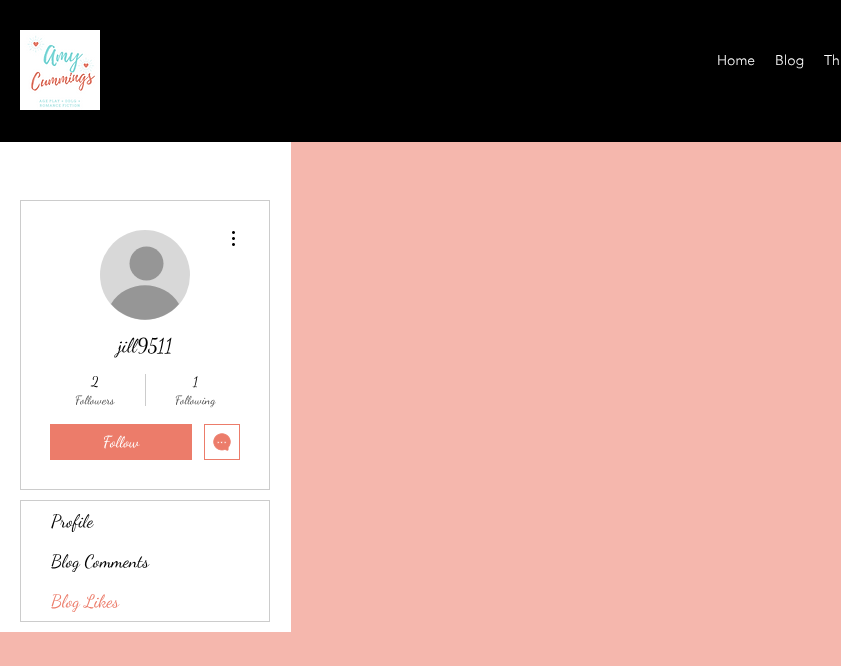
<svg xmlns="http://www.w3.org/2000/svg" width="841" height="666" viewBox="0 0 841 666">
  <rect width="100%" height="100%" fill="#f5b7ad"/>
  <rect x="0" y="0" width="841" height="142" fill="#000000"/>
  <image x="20" y="30" width="80" height="80" href="img1.png"/>
  <text x="717" y="65" font-family="'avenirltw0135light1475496'" font-size="14" font-weight="300" fill="#ffffff">Home</text>
  <text x="775" y="65" font-family="'avenirltw0135light1475496'" font-size="14" font-weight="300" fill="#ffffff">Blog</text>
  <text x="824" y="65" font-family="'avenirltw0135light1475496'" font-size="14" font-weight="300" fill="#ffffff">Th</text>
  <rect x="0" y="142" width="291" height="490" fill="#ffffff"/>
  <rect x="20.5" y="200.5" width="249" height="289" fill="none" stroke="#cccccc"/>
  <circle cx="145" cy="275" r="45" fill="#d8d8d8"/>
  <circle cx="146.5" cy="263.5" r="17" fill="#969696"/>
  <path d="M179 304C161 325 129 325 111 304C126 279 164 279 179 304Z" fill="#969696"/>
  <image x="232" y="231" width="3" height="15" href="img2.png"/>
  <text x="118" y="352" font-family="Dancing Script" font-size="20" fill="#000000">jill9511</text>
  <text x="91" y="386" font-family="Dancing Script" font-size="14" fill="#000000">2</text>
  <text x="75" y="404" font-family="Dancing Script" font-size="12" fill="#4d4d4d">Followers</text>
  <rect x="145" y="374" width="1" height="32" fill="#cccccc"/>
  <text x="193" y="386" font-family="Dancing Script" font-size="14" fill="#000000">1</text>
  <text x="175" y="404" font-family="Dancing Script" font-size="12" fill="#4d4d4d">Following</text>
  <rect x="50" y="424" width="142" height="36" fill="#ec7c6a"/>
  <text x="103" y="447" font-family="Dancing Script" font-size="16" fill="#ffffff">Follow</text>
  <rect x="204.5" y="424.5" width="35" height="35" fill="none" stroke="#ec7c6a"/>
  <image x="213" y="433" width="18" height="18" href="img3.png"/>
  <rect x="20.5" y="500.5" width="249" height="121" fill="none" stroke="#cccccc"/>
  <text x="51" y="527" font-family="Dancing Script" font-size="18" fill="#000000">Profile</text>
  <text x="51" y="567" font-family="Dancing Script" font-size="18" fill="#000000">Blog Comments</text>
  <text x="51" y="607" font-family="Dancing Script" font-size="18" fill="#ec7c6a">Blog Likes</text>
</svg>
